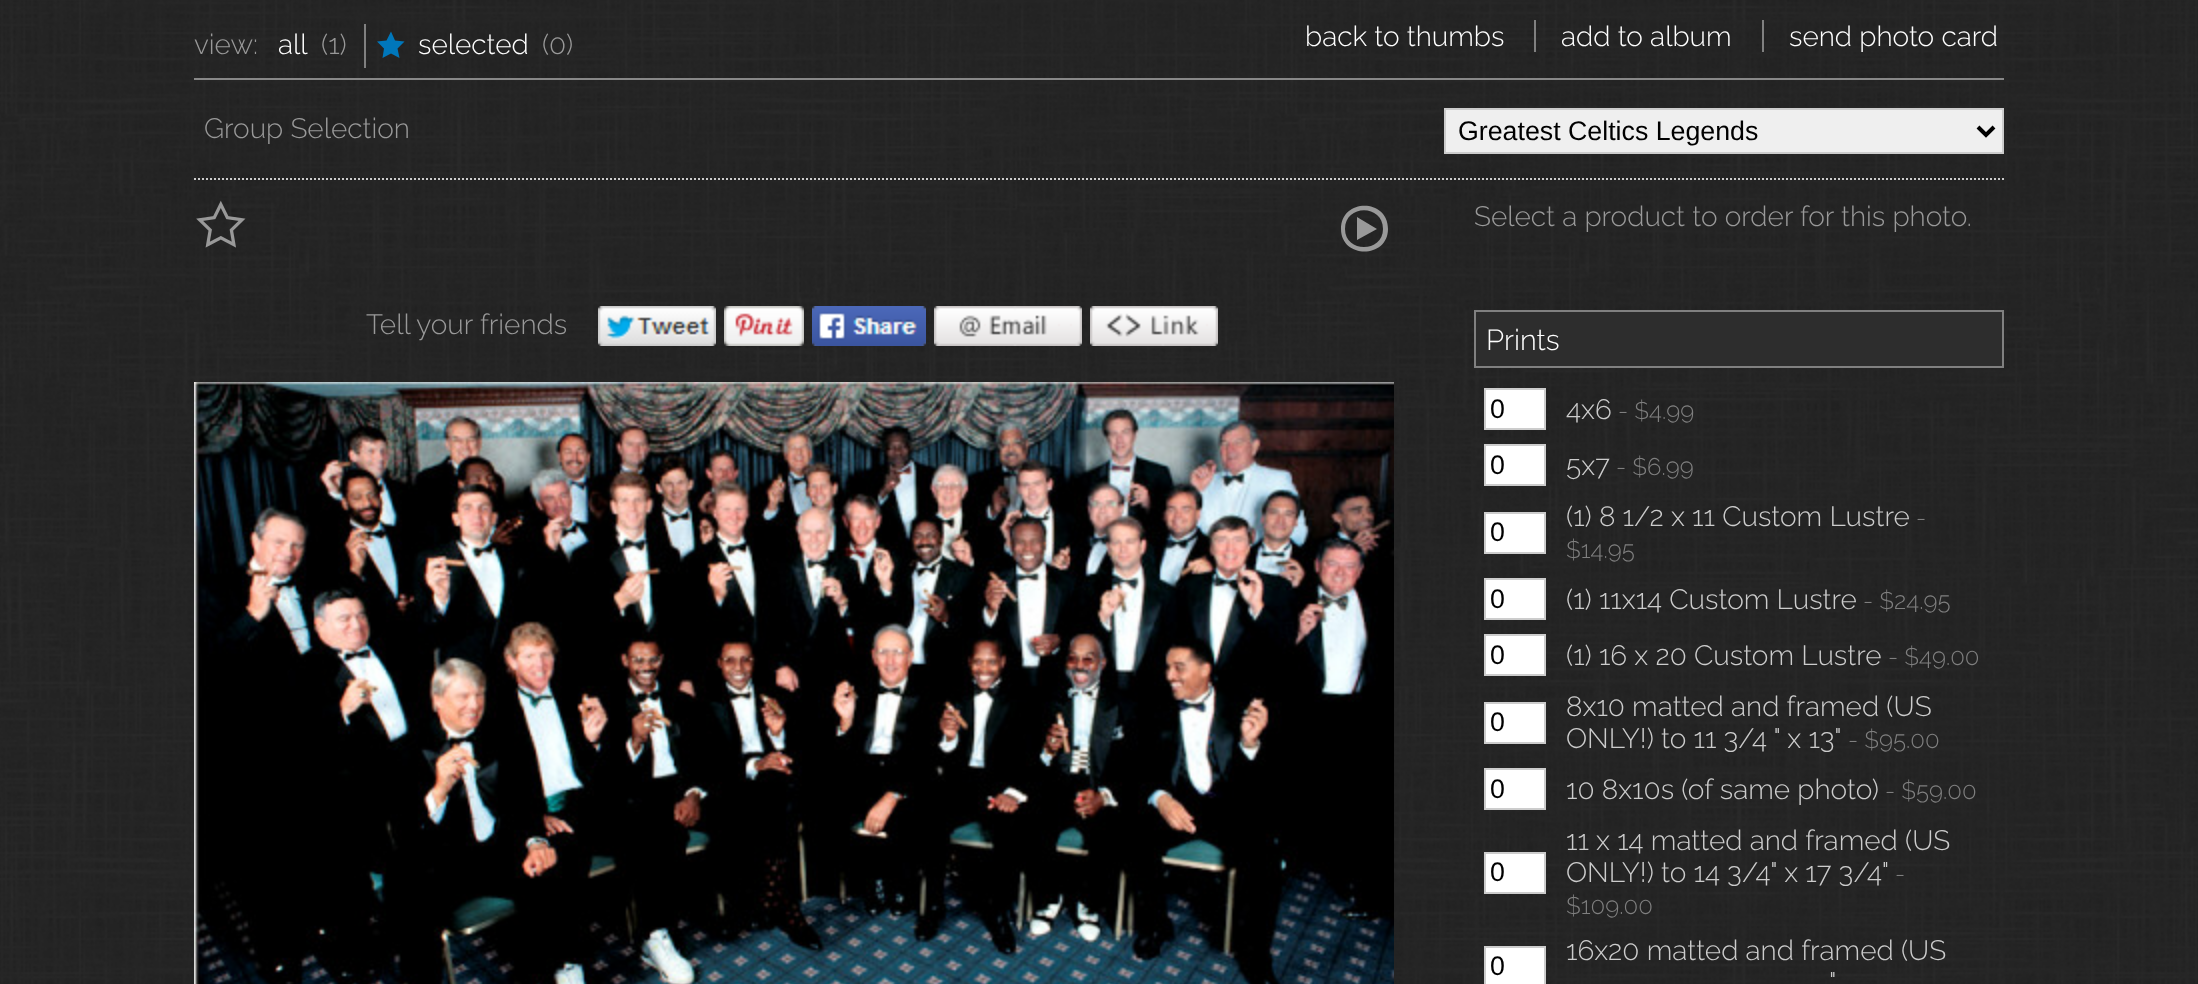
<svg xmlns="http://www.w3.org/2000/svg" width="2198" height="984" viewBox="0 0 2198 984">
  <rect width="100%" height="100%" fill="#ffffff"/>
  <image x="0" y="0" width="2198" height="984" href="img1.png"/>
  <text x="194" y="54" font-family="Raleway" font-size="28" font-weight="300" fill="#999999">view:</text>
  <text x="278" y="54" font-family="Raleway" font-size="28" font-weight="300" fill="#ffffff">all</text>
  <text x="321" y="54" font-family="Raleway" font-size="28" font-weight="300" fill="#999999">(1)</text>
  <text x="418" y="54" font-family="Raleway" font-size="28" font-weight="300" fill="#ffffff">selected</text>
  <rect x="364" y="24" width="2" height="44" fill="#808080"/>
  <path d="M377 41.5L386.5 40.5L391 31.5L395 40.5L404.5 41.5L397.5 48.5L399.5 58L391 53.5L382.5 58L384 48.5Z" fill="#0077bb"/>
  <text x="542" y="54" font-family="Raleway" font-size="28" font-weight="300" fill="#999999">(</text>
  <text x="549" y="54" font-family="Raleway" font-size="28" font-weight="300" fill="#999999">0</text>
  <text x="566" y="54" font-family="Raleway" font-size="28" font-weight="300" fill="#999999">)</text>
  <text x="1305" y="46" font-family="Raleway" font-size="28" font-weight="300" fill="#ffffff">back to thumbs</text>
  <text x="1561" y="46" font-family="Raleway" font-size="28" font-weight="300" fill="#ffffff">add to album</text>
  <rect x="1534" y="20" width="2" height="32" fill="#808080"/>
  <text x="1789" y="46" font-family="Raleway" font-size="28" font-weight="300" fill="#ffffff">send photo card</text>
  <rect x="1762" y="20" width="2" height="32" fill="#808080"/>
  <rect x="194" y="78" width="1810" height="2" fill="#888888"/>
  <path d="M194 179H2004" fill="none" stroke="#cccccc" stroke-width="2" stroke-dasharray="2 2"/>
  <text x="204" y="138" font-family="Raleway" font-size="28" font-weight="300" fill="#999999">Group Selection</text>
  <rect x="1445" y="109" width="558" height="44" fill="#efefef" stroke="#cccccc" stroke-width="2"/>
  <path d="M1978 127L1986 135L1994 127" fill="none" stroke="#000000" stroke-width="4"/>
  <text x="1458" y="140" font-family="Liberation Sans" font-size="26.75" fill="#000000">Greatest Celtics Legends</text>
  <image x="196" y="200" width="50" height="48" href="img2.png"/>
  <path d="M1341 229C1341 198 1388 198 1388 229C1388 259 1341 259 1341 229ZM1345 229C1345 253 1383 253 1383 229C1383 204 1345 204 1345 229ZM1357 240V217L1377 229Z" fill="#999999"/>
  <text x="366" y="334" font-family="Raleway" font-size="28" font-weight="300" fill="#999999">Tell your friends</text>
  <image x="598" y="306" width="118" height="40" href="img3.png"/>
  <image x="724" y="306" width="80" height="40" href="img4.png"/>
  <image x="812" y="306" width="114" height="40" href="img5.png"/>
  <image x="934" y="306" width="148" height="40" href="img6.png"/>
  <image x="1090" y="306" width="128" height="40" href="img7.png"/>
  <image x="194" y="382" width="1200" height="602" href="img8.png"/>
  <text x="1474" y="226" font-family="Raleway" font-size="28" font-weight="300" fill="#999999">Select a product to order for this photo.</text>
  <rect x="1475" y="311" width="528" height="56" fill="#2d2d2d" stroke="#808080" stroke-width="2"/>
  <text x="1486" y="350" font-family="Raleway" font-size="29" font-weight="300" fill="#ffffff">Prints</text>
  <rect x="1485" y="389" width="60" height="40" fill="#ffffff" stroke="#cccccc" stroke-width="2"/>
  <text x="1490" y="418" font-family="Liberation Sans" font-size="26.75" fill="#000000">0</text>
  <text x="1566" y="419" font-family="Raleway" font-size="28" font-weight="300" fill="#cccccc">4x6</text>
  <text x="1618" y="419" font-family="Raleway" font-size="24" font-weight="300" fill="#7f7f7f">- $4.99</text>
  <rect x="1485" y="445" width="60" height="40" fill="#ffffff" stroke="#cccccc" stroke-width="2"/>
  <text x="1490" y="474" font-family="Liberation Sans" font-size="26.75" fill="#000000">0</text>
  <text x="1566" y="475" font-family="Raleway" font-size="28" font-weight="300" fill="#cccccc">5x7</text>
  <text x="1616" y="475" font-family="Raleway" font-size="24" font-weight="300" fill="#7f7f7f">- $6.99</text>
  <rect x="1485" y="513" width="60" height="40" fill="#ffffff" stroke="#cccccc" stroke-width="2"/>
  <text x="1490" y="541" font-family="Liberation Sans" font-size="26.75" fill="#000000">0</text>
  <text x="1566" y="526" font-family="Raleway" font-size="28" font-weight="300" fill="#cccccc">(1) 8 1/2 x 11 Custom Lustre</text>
  <text x="1916" y="526" font-family="Raleway" font-size="24" font-weight="300" fill="#7f7f7f">-</text>
  <text x="1566" y="558" font-family="Raleway" font-size="24" font-weight="300" fill="#7f7f7f">$14.95</text>
  <rect x="1485" y="579" width="60" height="40" fill="#ffffff" stroke="#cccccc" stroke-width="2"/>
  <text x="1490" y="608" font-family="Liberation Sans" font-size="26.75" fill="#000000">0</text>
  <text x="1566" y="609" font-family="Raleway" font-size="28" font-weight="300" fill="#cccccc">(1) 11x14 Custom Lustre</text>
  <text x="1863" y="609" font-family="Raleway" font-size="24" font-weight="300" fill="#7f7f7f">- $24.95</text>
  <rect x="1485" y="635" width="60" height="40" fill="#ffffff" stroke="#cccccc" stroke-width="2"/>
  <text x="1490" y="664" font-family="Liberation Sans" font-size="26.75" fill="#000000">0</text>
  <text x="1566" y="665" font-family="Raleway" font-size="28" font-weight="300" fill="#cccccc">(1) 16 x 20 Custom Lustre</text>
  <text x="1888" y="665" font-family="Raleway" font-size="24" font-weight="300" fill="#7f7f7f">- $49.00</text>
  <rect x="1485" y="703" width="60" height="40" fill="#ffffff" stroke="#cccccc" stroke-width="2"/>
  <text x="1490" y="731" font-family="Liberation Sans" font-size="26.75" fill="#000000">0</text>
  <text x="1566" y="716" font-family="Raleway" font-size="28" font-weight="300" fill="#cccccc">8x10 matted and framed (US</text>
  <text x="1566" y="748" font-family="Raleway" font-size="28" font-weight="300" fill="#cccccc">ONLY!) to 11 3/4 " x 13"</text>
  <text x="1848" y="748" font-family="Raleway" font-size="24" font-weight="300" fill="#7f7f7f">- $95.00</text>
  <rect x="1485" y="769" width="60" height="40" fill="#ffffff" stroke="#cccccc" stroke-width="2"/>
  <text x="1490" y="798" font-family="Liberation Sans" font-size="26.75" fill="#000000">0</text>
  <text x="1566" y="799" font-family="Raleway" font-size="28" font-weight="300" fill="#cccccc">10 8x10s (of same photo)</text>
  <text x="1885" y="799" font-family="Raleway" font-size="24" font-weight="300" fill="#7f7f7f">- $59.00</text>
  <rect x="1485" y="853" width="60" height="40" fill="#ffffff" stroke="#cccccc" stroke-width="2"/>
  <text x="1490" y="881" font-family="Liberation Sans" font-size="26.75" fill="#000000">0</text>
  <text x="1566" y="850" font-family="Raleway" font-size="28" font-weight="300" fill="#cccccc">11 x 14 matted and framed (US</text>
  <text x="1566" y="882" font-family="Raleway" font-size="28" font-weight="300" fill="#cccccc">ONLY!) to 14 3/4" x 17 3/4"</text>
  <text x="1895" y="882" font-family="Raleway" font-size="24" font-weight="300" fill="#7f7f7f">-</text>
  <text x="1566" y="914" font-family="Raleway" font-size="24" font-weight="300" fill="#7f7f7f">$109.00</text>
  <rect x="1485" y="947" width="60" height="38" fill="#ffffff" stroke="#cccccc" stroke-width="2"/>
  <text x="1490" y="975" font-family="Liberation Sans" font-size="26.75" fill="#000000">0</text>
  <text x="1566" y="960" font-family="Raleway" font-size="28" font-weight="300" fill="#cccccc">16x20 matted and framed (US</text>
  <text x="1829" y="992" font-family="Raleway" font-size="28" font-weight="300" fill="#cccccc">"</text>
</svg>
